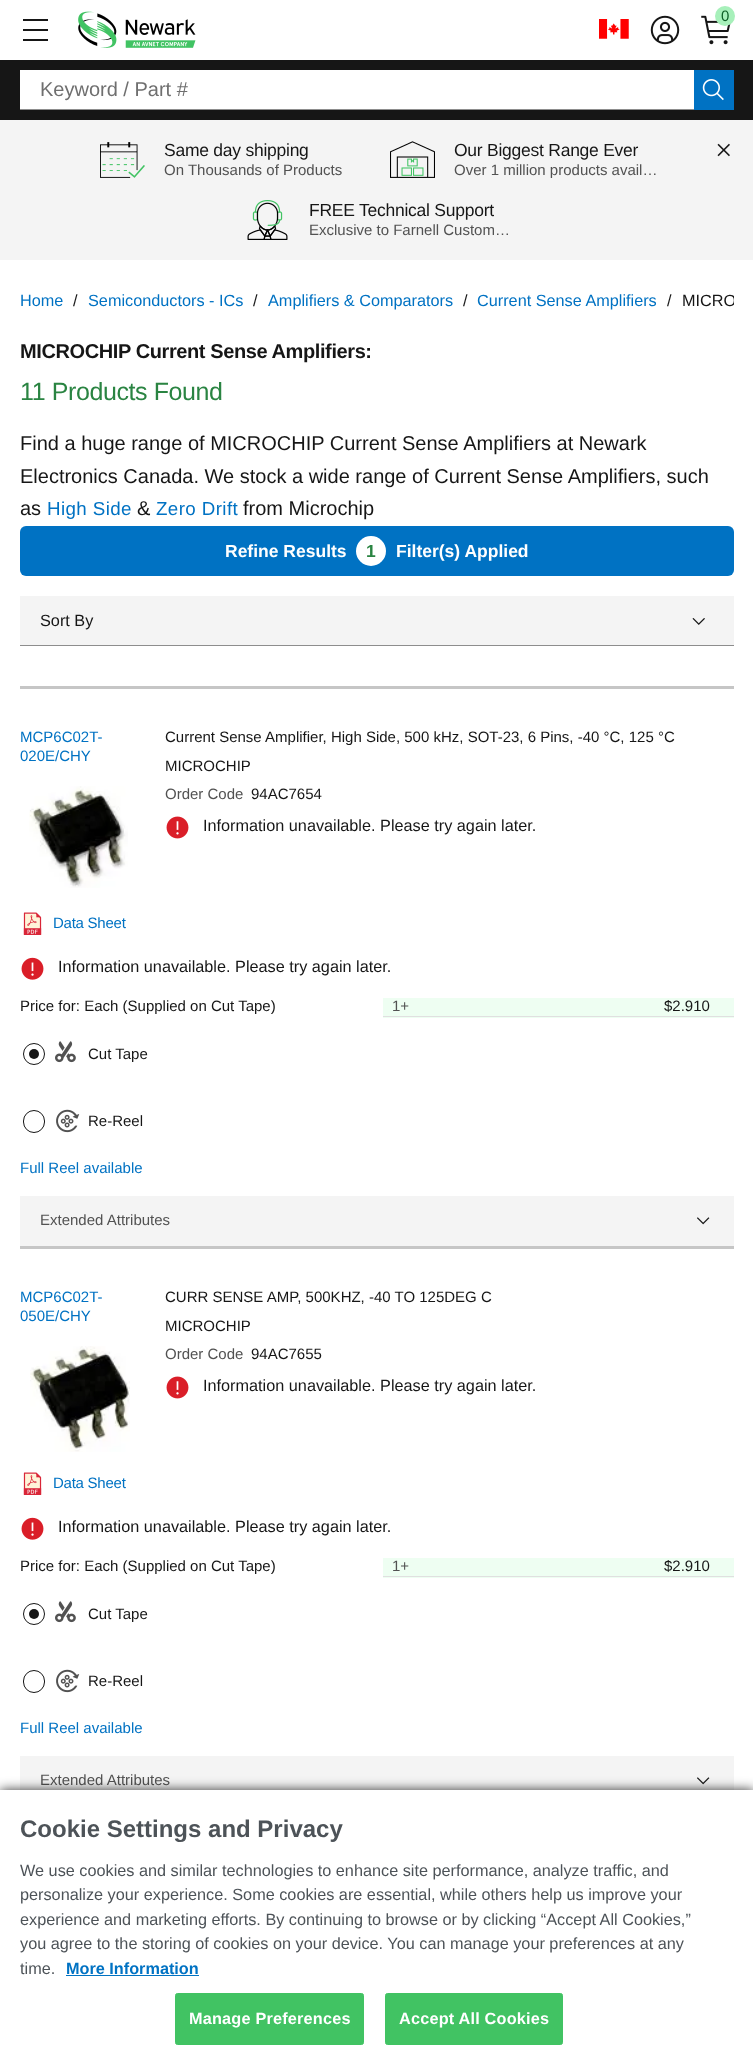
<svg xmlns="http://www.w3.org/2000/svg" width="753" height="2064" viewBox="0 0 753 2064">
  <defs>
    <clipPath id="clip1"><rect x="20" y="290" width="714" height="38"/></clipPath>
    <filter id="blur1" x="-50%" y="-200%" width="200%" height="500%"><feGaussianBlur stdDeviation="6"/></filter>
  </defs>
  <rect width="100%" height="100%" fill="#ffffff"/>
  <rect x="23" y="19" width="25" height="2" fill="#161616"/>
  <rect x="23" y="29" width="25" height="2" fill="#161616"/>
  <rect x="23" y="39" width="25" height="2" fill="#161616"/>
  <image x="78" y="11" width="118" height="37" href="img1.png"/>
  <image x="599" y="19" width="30" height="20" href="img2.png"/>
  <image x="650" y="15" width="30" height="30" href="img3.png"/>
  <image x="701" y="15" width="30" height="30" href="img4.png"/>
  <circle cx="725" cy="16" r="10" fill="#a7f0ba"/>
  <text x="721" y="21" font-family="Liberation Sans" font-size="15" fill="#0e6027">0</text>
  <rect x="0" y="60" width="753" height="60" fill="#161616"/>
  <rect x="20" y="70" width="674" height="39" fill="#ffffff"/>
  <rect x="20" y="109" width="674" height="1" fill="#8d8d8d"/>
  <text x="40" y="96" font-family="Liberation Sans" font-size="20" fill="#6f6f6f">Keyword / Part #</text>
  <rect x="694" y="70" width="40" height="40" fill="#0072c3"/>
  <image x="702" y="79" width="22" height="22" href="img5.png"/>
  <rect x="0" y="120" width="753" height="140" fill="#f4f4f4"/>
  <image x="100" y="142" width="45" height="36" href="img6.png"/>
  <text x="164" y="156" font-family="Liberation Sans" font-size="17.5" letter-spacing="-0.25" fill="#161616">Same day shipping</text>
  <text x="164" y="175" font-family="Liberation Sans" font-size="15" fill="#525252">On Thousands of Products</text>
  <image x="390" y="141" width="45" height="37" href="img7.png"/>
  <text x="454" y="156" font-family="Liberation Sans" font-size="17.5" letter-spacing="-0.25" fill="#161616">Our Biggest Range Ever</text>
  <text x="454" y="175" font-family="Liberation Sans" font-size="15" fill="#525252">Over 1 million products avail…</text>
  <image x="247" y="200" width="41" height="40" href="img8.png"/>
  <text x="309" y="216" font-family="Liberation Sans" font-size="17.5" letter-spacing="-0.25" fill="#161616">FREE Technical Support</text>
  <text x="309" y="235" font-family="Liberation Sans" font-size="15" fill="#525252">Exclusive to Farnell Custom…</text>
  <image x="717" y="143" width="13" height="14" href="img9.png"/>
  <text x="20" y="306" font-family="Liberation Sans" font-size="16.25" fill="#0072c3">Home</text>
  <text x="73" y="306" font-family="Liberation Sans" font-size="16.25" fill="#161616">/</text>
  <text x="88" y="306" font-family="Liberation Sans" font-size="16.25" fill="#0072c3">Semiconductors - ICs</text>
  <text x="253" y="306" font-family="Liberation Sans" font-size="16.25" fill="#161616">/</text>
  <text x="268" y="306" font-family="Liberation Sans" font-size="16.25" fill="#0072c3">Amplifiers &amp; Comparators</text>
  <text x="463" y="306" font-family="Liberation Sans" font-size="16.25" fill="#161616">/</text>
  <text x="477" y="306" font-family="Liberation Sans" font-size="16.25" fill="#0072c3">Current Sense Amplifiers</text>
  <text x="667" y="306" font-family="Liberation Sans" font-size="16.25" fill="#161616">/</text>
  <g clip-path="url(#clip1)">
    <text x="682" y="306" font-family="Liberation Sans" font-size="16.25" fill="#161616">MICRO</text>
  </g>
  <text x="20" y="358" font-family="Liberation Sans" font-size="20" font-weight="bold" letter-spacing="-0.4" fill="#161616">MICROCHIP Current Sense Amplifiers:</text>
  <text x="20" y="400" font-family="Liberation Sans" font-size="25" letter-spacing="-0.4" fill="#2a8442">11 Products Found</text>
  <text x="20" y="450" font-family="Liberation Sans" font-size="20" fill="#161616">Find a huge range of MICROCHIP Current Sense Amplifiers at Newark</text>
  <text x="20" y="483" font-family="Liberation Sans" font-size="20" fill="#161616">Electronics Canada. We stock a wide range of Current Sense Amplifiers, such</text>
  <text x="20" y="515" font-family="Liberation Sans" font-size="20" fill="#161616">as</text>
  <text x="47" y="515" font-family="Liberation Sans" font-size="18.75" letter-spacing="0.4" fill="#0072c3">High Side</text>
  <text x="137" y="515" font-family="Liberation Sans" font-size="20" fill="#161616">&amp;</text>
  <text x="156" y="515" font-family="Liberation Sans" font-size="18.75" letter-spacing="0.4" fill="#0072c3">Zero Drift</text>
  <text x="243" y="515" font-family="Liberation Sans" font-size="20" fill="#161616">from Microchip</text>
  <rect x="20" y="526" width="714" height="50" rx="6" fill="#0072c3"/>
  <text x="225" y="557" font-family="Liberation Sans" font-size="17.5" font-weight="bold" fill="#ffffff">Refine Results</text>
  <circle cx="371" cy="551" r="15" fill="#ffffff"/>
  <text x="366" y="557" font-family="Liberation Sans" font-size="17.5" font-weight="bold" fill="#2a8442">1</text>
  <text x="396" y="557" font-family="Liberation Sans" font-size="17.5" font-weight="bold" fill="#ffffff">Filter(s) Applied</text>
  <rect x="20" y="596" width="714" height="49" fill="#f4f4f4"/>
  <rect x="20" y="645" width="714" height="1" fill="#8d8d8d"/>
  <text x="40" y="626" font-family="Liberation Sans" font-size="16.25" fill="#161616">Sort By</text>
  <image x="692" y="618" width="13" height="7" href="img10.png"/>
  <rect x="20" y="686" width="714" height="3" fill="#c6c6c6"/>
  <text x="20" y="742" font-family="Liberation Sans" font-size="15" fill="#0072c3">MCP6C02T-</text>
  <text x="20" y="761" font-family="Liberation Sans" font-size="15" fill="#0072c3">020E/CHY</text>
  <image x="29" y="786" width="99" height="102" href="img11.png"/>
  <image x="23" y="912" width="19" height="23" href="img12.png"/>
  <text x="53" y="928" font-family="Liberation Sans" font-size="15" letter-spacing="-0.25" fill="#0072c3">Data Sheet</text>
  <text x="165" y="742" font-family="Liberation Sans" font-size="15" fill="#161616">Current Sense Amplifier, High Side, 500 kHz, SOT-23, 6 Pins, -40 °C, 125 °C</text>
  <text x="165" y="771" font-family="Liberation Sans" font-size="15" fill="#161616">MICROCHIP</text>
  <text x="165" y="799" font-family="Liberation Sans" font-size="15" fill="#525252">Order Code</text>
  <text x="251" y="799" font-family="Liberation Sans" font-size="15" fill="#161616">94AC7654</text>
  <image x="166" y="816" width="23" height="23" href="img13.png"/>
  <text x="203" y="831" font-family="Liberation Sans" font-size="16.25" fill="#161616">Information unavailable. Please try again later.</text>
  <image x="21" y="957" width="23" height="23" href="img14.png"/>
  <text x="58" y="972" font-family="Liberation Sans" font-size="16.25" fill="#161616">Information unavailable. Please try again later.</text>
  <text x="20" y="1011" font-family="Liberation Sans" font-size="15" fill="#161616">Price for: Each (Supplied on Cut Tape)</text>
  <circle cx="34" cy="1054" r="10.5" fill="none" stroke="#161616"/>
  <circle cx="34" cy="1054" r="5" fill="#161616"/>
  <image x="55" y="1041" width="21" height="22" href="img15.png"/>
  <text x="88" y="1059" font-family="Liberation Sans" font-size="15" fill="#161616">Cut Tape</text>
  <rect x="23.5" y="1110.5" width="21" height="22" rx="10.5" fill="none" stroke="#161616"/>
  <image x="56" y="1109" width="24" height="24" href="img16.png"/>
  <text x="88" y="1126" font-family="Liberation Sans" font-size="15" fill="#161616">Re-Reel</text>
  <text x="20" y="1173" font-family="Liberation Sans" font-size="15" fill="#0072c3">Full Reel available</text>
  <rect x="383" y="998" width="351" height="20" fill="#eefef2"/>
  <rect x="383" y="1016" width="351" height="1" fill="#e0e0e0"/>
  <text x="392" y="1011" font-family="Liberation Sans" font-size="15" fill="#525252">1+</text>
  <text x="664" y="1011" font-family="Liberation Sans" font-size="15" fill="#161616">$2.910</text>
  <rect x="20" y="1196" width="714" height="50" fill="#f4f4f4"/>
  <text x="40" y="1225" font-family="Liberation Sans" font-size="15" fill="#525252">Extended Attributes</text>
  <image x="697" y="1217" width="13" height="8" href="img17.png"/>
  <rect x="20" y="1246" width="714" height="3" fill="#c6c6c6"/>
  <text x="20" y="1302" font-family="Liberation Sans" font-size="15" fill="#0072c3">MCP6C02T-</text>
  <text x="20" y="1321" font-family="Liberation Sans" font-size="15" fill="#0072c3">050E/CHY</text>
  <image x="30" y="1346" width="100" height="106" href="img18.png"/>
  <image x="23" y="1472" width="19" height="23" href="img12.png"/>
  <text x="53" y="1488" font-family="Liberation Sans" font-size="15" letter-spacing="-0.25" fill="#0072c3">Data Sheet</text>
  <text x="165" y="1302" font-family="Liberation Sans" font-size="15" fill="#161616">CURR SENSE AMP, 500KHZ, -40 TO 125DEG C</text>
  <text x="165" y="1331" font-family="Liberation Sans" font-size="15" fill="#161616">MICROCHIP</text>
  <text x="165" y="1359" font-family="Liberation Sans" font-size="15" fill="#525252">Order Code</text>
  <text x="251" y="1359" font-family="Liberation Sans" font-size="15" fill="#161616">94AC7655</text>
  <image x="166" y="1376" width="23" height="23" href="img13.png"/>
  <text x="203" y="1391" font-family="Liberation Sans" font-size="16.25" fill="#161616">Information unavailable. Please try again later.</text>
  <image x="21" y="1517" width="23" height="23" href="img14.png"/>
  <text x="58" y="1532" font-family="Liberation Sans" font-size="16.25" fill="#161616">Information unavailable. Please try again later.</text>
  <text x="20" y="1571" font-family="Liberation Sans" font-size="15" fill="#161616">Price for: Each (Supplied on Cut Tape)</text>
  <circle cx="34" cy="1614" r="10.5" fill="none" stroke="#161616"/>
  <circle cx="34" cy="1614" r="5" fill="#161616"/>
  <image x="55" y="1601" width="21" height="22" href="img15.png"/>
  <text x="88" y="1619" font-family="Liberation Sans" font-size="15" fill="#161616">Cut Tape</text>
  <rect x="23.5" y="1670.5" width="21" height="22" rx="10.5" fill="none" stroke="#161616"/>
  <image x="56" y="1669" width="24" height="24" href="img16.png"/>
  <text x="88" y="1686" font-family="Liberation Sans" font-size="15" fill="#161616">Re-Reel</text>
  <text x="20" y="1733" font-family="Liberation Sans" font-size="15" fill="#0072c3">Full Reel available</text>
  <rect x="383" y="1558" width="351" height="20" fill="#eefef2"/>
  <rect x="383" y="1576" width="351" height="1" fill="#e0e0e0"/>
  <text x="392" y="1571" font-family="Liberation Sans" font-size="15" fill="#525252">1+</text>
  <text x="664" y="1571" font-family="Liberation Sans" font-size="15" fill="#161616">$2.910</text>
  <rect x="20" y="1756" width="714" height="34" fill="#f4f4f4"/>
  <text x="40" y="1785" font-family="Liberation Sans" font-size="15" fill="#525252">Extended Attributes</text>
  <image x="697" y="1777" width="13" height="8" href="img17.png"/>
  <rect x="0" y="1790" width="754" height="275" fill="#000000" fill-opacity="0.8" filter="url(#blur1)"/>
  <rect x="0" y="1790" width="753" height="274" fill="#ffffff"/>
  <text x="20" y="1837" font-family="Liberation Sans" font-size="24" font-weight="bold" fill="#4d5358">Cookie Settings and Privacy</text>
  <text x="20" y="1876" font-family="Liberation Sans" font-size="16.25" fill="#4d5358">We use cookies and similar technologies to enhance site performance, analyze traffic, and</text>
  <text x="20" y="1900" font-family="Liberation Sans" font-size="16.25" fill="#4d5358">personalize your experience. Some cookies are essential, while others help us improve your</text>
  <text x="20" y="1925" font-family="Liberation Sans" font-size="16.25" fill="#4d5358">experience and marketing efforts. By continuing to browse or by clicking “Accept All Cookies,”</text>
  <text x="20" y="1949" font-family="Liberation Sans" font-size="16.25" fill="#4d5358">you agree to the storing of cookies on your device. You can manage your preferences at any</text>
  <text x="20" y="1974" font-family="Liberation Sans" font-size="16.25" fill="#4d5358">time.</text>
  <text x="66" y="1974" font-family="Liberation Sans" font-size="16.25" font-weight="bold" fill="#0072c3">More Information</text>
  <rect x="66" y="1975" width="133" height="1" fill="#0072c3"/>
  <rect x="175.5" y="1993.5" width="188" height="51" rx="2" fill="#41c363" stroke="#41c363"/>
  <text x="189" y="2024" font-family="Liberation Sans" font-size="16.25" font-weight="bold" letter-spacing="0.2" fill="#ffffff">Manage Preferences</text>
  <rect x="385.5" y="1993.5" width="177" height="51" rx="2" fill="#41c363" stroke="#41c363"/>
  <text x="399" y="2024" font-family="Liberation Sans" font-size="16.25" font-weight="bold" letter-spacing="0.2" fill="#ffffff">Accept All Cookies</text>
</svg>
